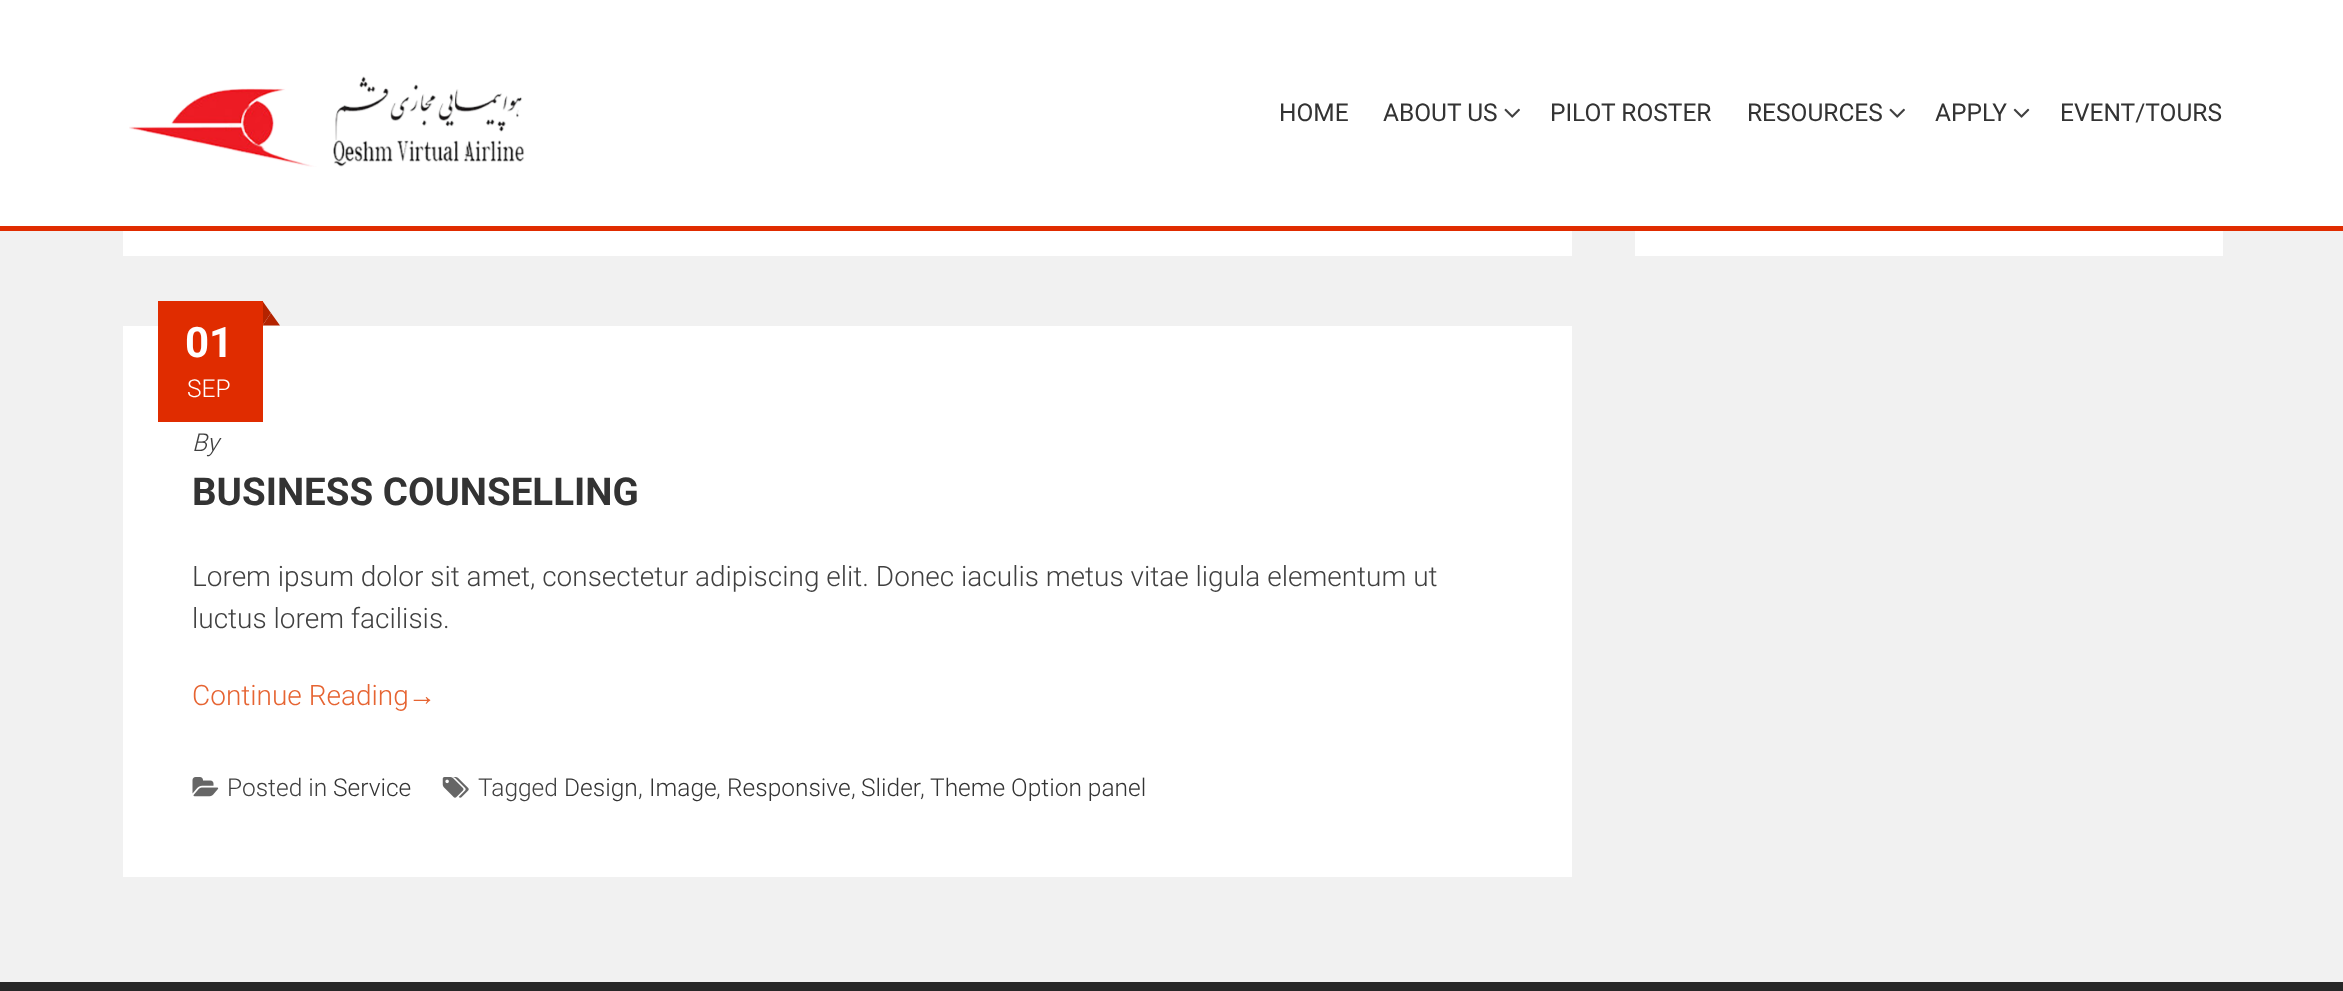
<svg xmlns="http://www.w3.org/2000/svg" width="2343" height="991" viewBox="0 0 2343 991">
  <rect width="100%" height="100%" fill="#f1f1f1"/>
  <rect x="0" y="0" width="2343" height="226" fill="#ffffff"/>
  <rect x="0" y="226" width="2343" height="5" fill="#e02c00"/>
  <image x="129" y="76" width="396" height="91" href="img1.png"/>
  <text x="1279" y="121" font-family="Roboto" font-size="24.5" fill="#333333">HOME</text>
  <text x="1383" y="121" font-family="Roboto" font-size="24.5" fill="#333333">ABOUT US</text>
  <image x="1504" y="108" width="16" height="10" href="img2.png"/>
  <text x="1550" y="121" font-family="Roboto" font-size="24.5" fill="#333333">PILOT ROSTER</text>
  <text x="1747" y="121" font-family="Roboto" font-size="24.5" fill="#333333">RESOURCES</text>
  <image x="1889" y="108" width="16" height="10" href="img2.png"/>
  <text x="1935" y="121" font-family="Roboto" font-size="24.5" fill="#333333">APPLY</text>
  <image x="2013" y="108" width="17" height="10" href="img3.png"/>
  <text x="2060" y="121" font-family="Roboto" font-size="24.5" fill="#333333">EVENT/TOURS</text>
  <rect x="1635" y="231" width="588" height="25" fill="#ffffff"/>
  <rect x="123" y="231" width="1449" height="25" fill="#ffffff"/>
  <rect x="123" y="326" width="1449" height="551" fill="#ffffff"/>
  <path d="M280 325.5H262.5L271 313Z" fill="#b32300"/>
  <path d="M262.5 325.5V301L271 313Z" fill="#b32300"/>
  <rect x="158" y="301" width="105" height="121" fill="#e02c00"/>
  <text x="185" y="357" font-family="Roboto" font-size="42" font-weight="bold" fill="#ffffff">01</text>
  <text x="187" y="397" font-family="Roboto" font-size="24.5" font-weight="300" fill="#ffffff">SEP</text>
  <text x="192" y="451" font-family="Roboto" font-size="24.5" font-weight="300" font-style="italic" fill="#404040">By</text>
  <text x="192" y="505" font-family="Roboto" font-size="38.5" font-weight="bold" fill="#333333">BUSINESS COUNSELLING</text>
  <text x="192" y="586" font-family="Roboto" font-size="28" font-weight="300" fill="#404040">Lorem ipsum dolor sit amet, consectetur adipiscing elit. Donec iaculis metus vitae ligula elementum ut</text>
  <text x="192" y="628" font-family="Roboto" font-size="28" font-weight="300" fill="#404040">luctus lorem facilisis.</text>
  <text x="192" y="705" font-family="Roboto" font-size="28" font-weight="300" fill="#e66432">Continue Reading</text>
  <text x="408" y="705" font-family="Liberation Sans" font-size="28" fill="#e66432">→</text>
  <image x="192" y="777" width="27" height="20" href="img4.png"/>
  <text x="227" y="796" font-family="Roboto" font-size="24.5" font-weight="300" fill="#404040">Posted in</text>
  <text x="333" y="796" font-family="Roboto" font-size="24.5" font-weight="300" fill="#333333">Service</text>
  <image x="442" y="777" width="27" height="21" href="img5.png"/>
  <text x="478" y="796" font-family="Roboto" font-size="24.5" font-weight="300" fill="#404040">Tagged</text>
  <text x="564" y="796" font-family="Roboto" font-size="24.5" font-weight="300" fill="#333333">Design</text>
  <text x="638" y="796" font-family="Roboto" font-size="24.5" font-weight="300" fill="#404040">,</text>
  <text x="649" y="796" font-family="Roboto" font-size="24.5" font-weight="300" fill="#333333">Image</text>
  <text x="716" y="796" font-family="Roboto" font-size="24.5" font-weight="300" fill="#404040">,</text>
  <text x="727" y="796" font-family="Roboto" font-size="24.5" font-weight="300" fill="#333333">Responsive</text>
  <text x="851" y="796" font-family="Roboto" font-size="24.5" font-weight="300" fill="#404040">,</text>
  <text x="861" y="796" font-family="Roboto" font-size="24.5" font-weight="300" fill="#333333">Slider</text>
  <text x="930" y="796" font-family="Roboto" font-size="24.5" font-weight="300" fill="#333333">Theme Option panel</text>
  <text x="920" y="796" font-family="Roboto" font-size="24.5" font-weight="300" fill="#404040">,</text>
  <rect x="0" y="982" width="2343" height="9" fill="#272727"/>
</svg>
